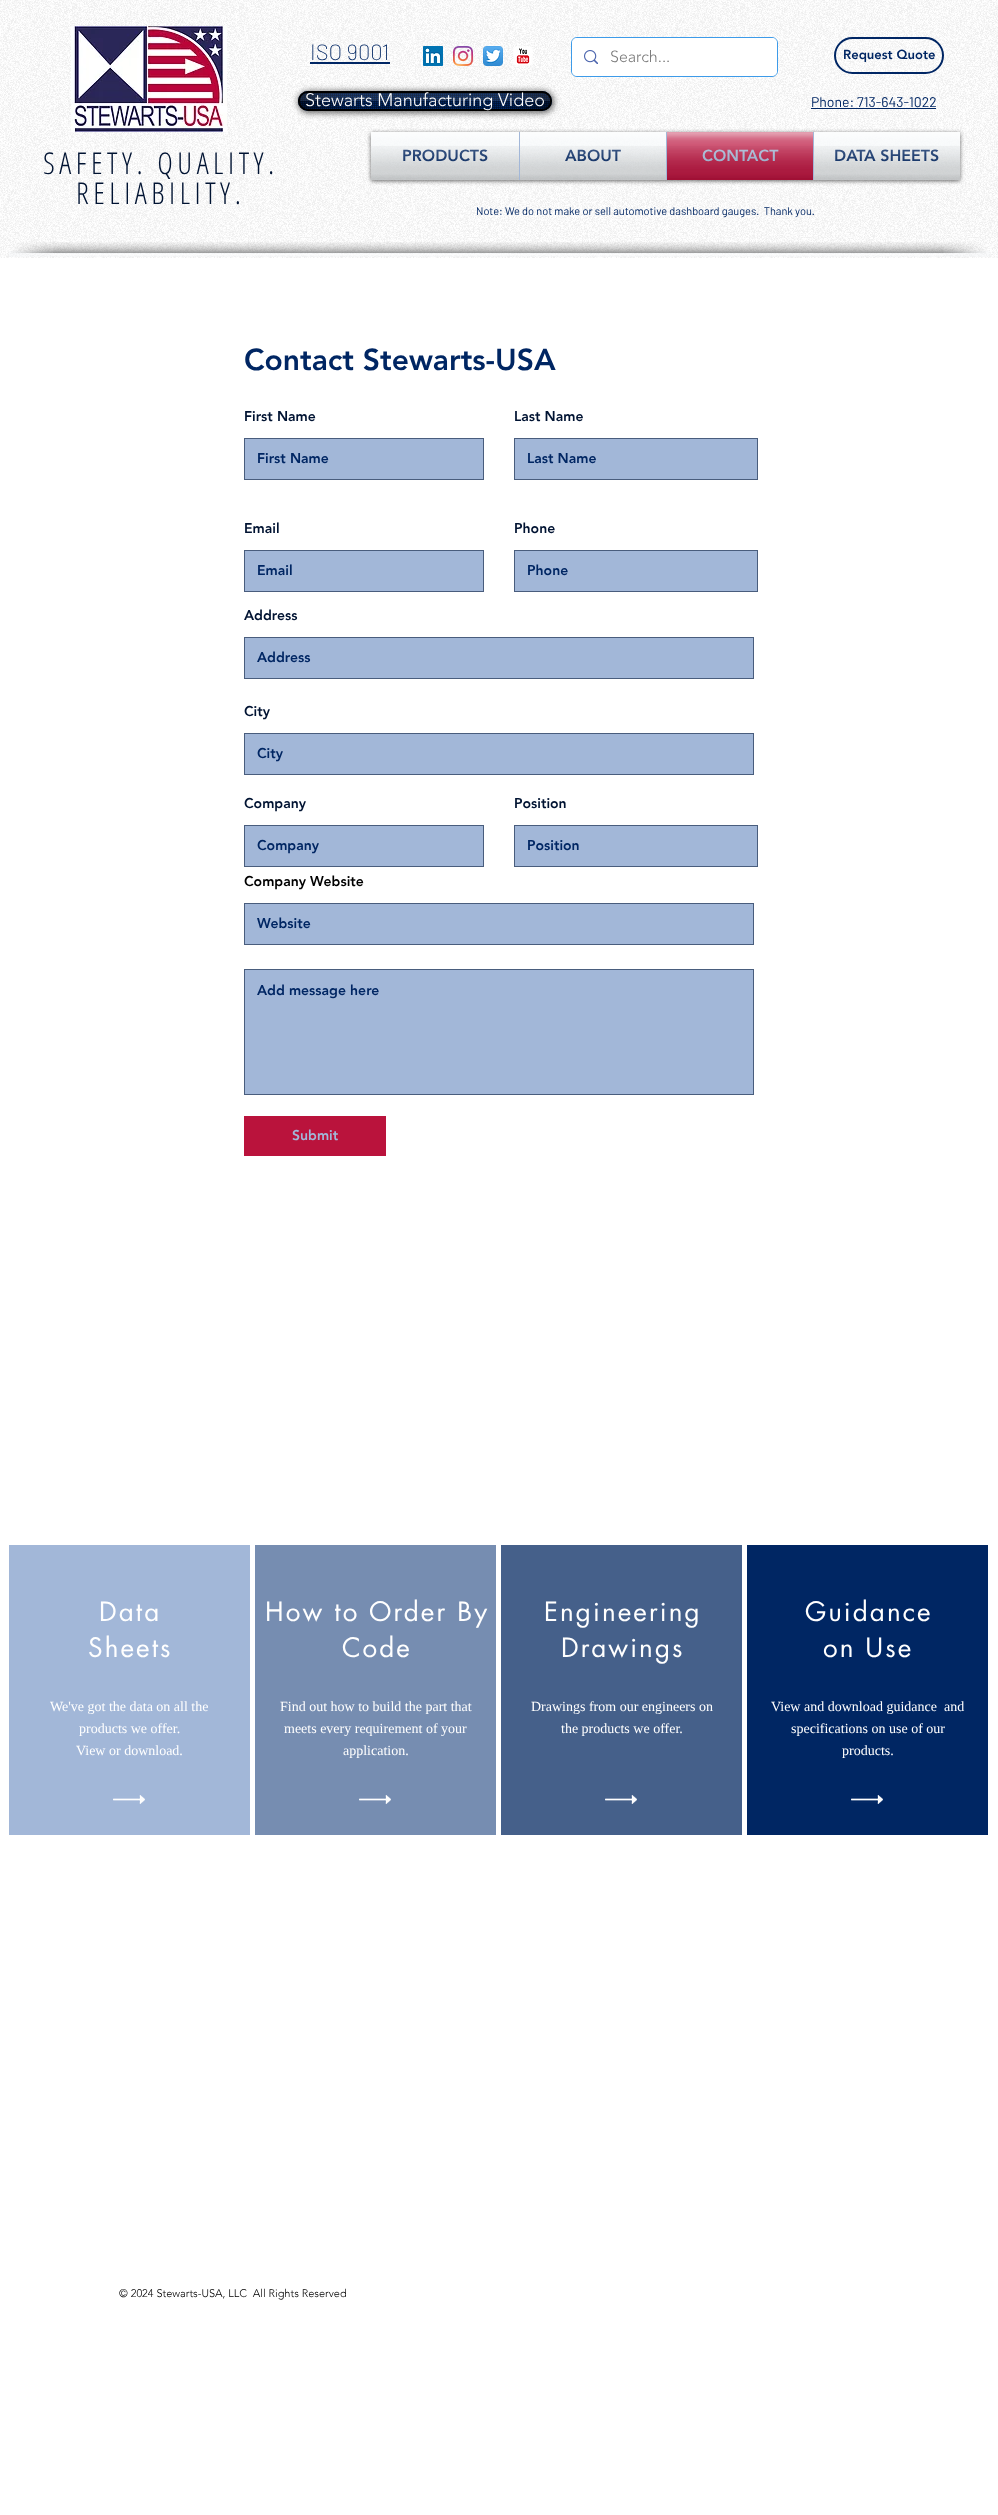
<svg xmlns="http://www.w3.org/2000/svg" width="998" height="2515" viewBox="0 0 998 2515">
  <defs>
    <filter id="blur1" x="-50%" y="-200%" width="200%" height="500%"><feGaussianBlur stdDeviation="3"/></filter>
    <clipPath id="clip1"><path d="M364 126H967V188H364ZM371 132H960V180H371Z" clip-rule="evenodd"/></clipPath>
    <filter id="blur2" x="-50%" y="-200%" width="200%" height="500%"><feGaussianBlur stdDeviation="2"/></filter>
  </defs>
  <rect width="100%" height="100%" fill="#ffffff"/>
  <image x="0" y="0" width="998" height="258" href="img1.png"/>
  <image x="71" y="26" width="156" height="106" href="img2.png"/>
  <text x="310" y="60" font-family="Barlow" font-size="22" font-weight="200" fill="#002663">ISO 9001</text>
  <rect x="310" y="62" width="80" height="2" fill="#002664"/>
  <image x="423" y="46" width="20" height="20" href="img3.png"/>
  <image x="453" y="46" width="20" height="20" href="img4.png"/>
  <image x="483" y="46" width="20" height="20" href="img5.png"/>
  <image x="513" y="46" width="20" height="20" href="img6.png"/>
  <rect x="571.5" y="37.5" width="206" height="39" rx="5.5" fill="none" stroke="#3d9be9"/>
  <rect x="572" y="38" width="205" height="38" rx="5" fill="#ffffff"/>
  <image x="584" y="50" width="14" height="14" href="img7.png"/>
  <text x="610" y="62" font-family="'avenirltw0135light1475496'" font-size="16" font-weight="300" fill="#787878">Search...</text>
  <rect x="835" y="38" width="108" height="35" rx="17.5" fill="none" stroke="#002664" stroke-width="2"/>
  <text x="843" y="59" font-family="'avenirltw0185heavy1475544'" font-size="13" font-weight="900" fill="#002663">Request Quote</text>
  <rect x="298" y="91" width="256" height="22" rx="11" fill="#000000" fill-opacity="0.6" filter="url(#blur1)"/>
  <rect x="298" y="91" width="254" height="20" rx="10" fill="#002664"/>
  <image x="298" y="91" width="254" height="20" href="img8.png"/>
  <rect x="299" y="92" width="252" height="18" rx="9" fill="none" stroke="#000000" stroke-width="2"/>
  <image x="300" y="93" width="42" height="16" href="img9.png"/>
  <image x="507" y="93" width="43" height="16" href="img11.png"/>
  <text x="305" y="106" font-family="'avenirltw0135light1475496'" font-size="18" font-weight="300" fill="#ffffff">Stewarts Manufacturing Video</text>
  <image x="300" y="93" width="250" height="8" href="img10.png"/>
  <text x="811" y="107" font-family="Barlow" font-size="14" fill="#002663">Phone: 713-643-1022</text>
  <rect x="811" y="108" width="125" height="1" fill="#002664"/>
  <text x="43" y="174" font-family="Open Sans Condensed" font-size="30" font-weight="300" letter-spacing="4.5" fill="#001332">SAFETY. QUALITY.</text>
  <text x="76" y="204" font-family="Open Sans Condensed" font-size="30" font-weight="300" letter-spacing="4.5" fill="#001332">RELIABILITY.</text>
  <g clip-path="url(#clip1)">
    <rect x="371" y="133" width="589" height="48" fill="#000000" fill-opacity="0.6" filter="url(#blur2)"/>
  </g>
  <rect x="371" y="132" width="589" height="48" fill="#f3f6f8" fill-opacity="0.49"/>
  <image x="371" y="132" width="589" height="13" href="img12.png"/>
  <image x="371" y="146" width="589" height="34" href="img13.png"/>
  <rect x="371" y="132" width="148" height="48" fill="#f3f6f8" fill-opacity="0.49"/>
  <text x="402" y="161" font-family="'avenirltw0185heavy1475544'" font-size="16" font-weight="900" fill="#002663">PRODUCTS</text>
  <image x="371" y="132" width="148" height="30" href="img14.png"/>
  <image x="371" y="146" width="148" height="34" href="img15.png"/>
  <rect x="520" y="132" width="146" height="48" fill="#f3f6f8" fill-opacity="0.49"/>
  <rect x="519" y="132" width="1" height="48" fill="#a2b7d8"/>
  <text x="565" y="161" font-family="'avenirltw0185heavy1475544'" font-size="16" font-weight="900" fill="#002663">ABOUT</text>
  <image x="520" y="132" width="146" height="30" href="img16.png"/>
  <image x="520" y="146" width="146" height="34" href="img17.png"/>
  <rect x="667" y="132" width="146" height="48" fill="#bb133e"/>
  <rect x="666" y="132" width="1" height="48" fill="#a2b7d8"/>
  <text x="702" y="161" font-family="'avenirltw0185heavy1475544'" font-size="16" font-weight="900" fill="#a2b7d8">CONTACT</text>
  <image x="667" y="132" width="146" height="46" href="img18.png"/>
  <image x="667" y="146" width="146" height="34" href="img19.png"/>
  <rect x="814" y="132" width="146" height="48" fill="#f3f6f8" fill-opacity="0.49"/>
  <rect x="813" y="132" width="1" height="48" fill="#a2b7d8"/>
  <text x="834" y="161" font-family="'avenirltw0185heavy1475544'" font-size="16" font-weight="900" fill="#002663">DATA SHEETS</text>
  <image x="814" y="132" width="146" height="30" href="img20.png"/>
  <image x="814" y="146" width="146" height="34" href="img21.png"/>
  <text x="476" y="215" font-family="Barlow" font-size="11" fill="#002663" xml:space="preserve">Note: We do not make or sell automotive dashboard gauges.  Thank you.</text>
  <rect x="9" y="251" width="981" height="6" fill="#f3f6f8" fill-opacity="0.53"/>
  <image x="53" y="242" width="891" height="14" href="img22.png"/>
  <image x="11" y="242" width="42" height="13" href="img23.png"/>
  <image x="944" y="242" width="42" height="13" href="img24.png"/>
  <text x="244" y="370" font-family="'avenirltw0185heavy1475544'" font-size="30" font-weight="900" fill="#002663">Contact Stewarts-USA</text>
  <text x="244" y="421" font-family="'avenirltw0185heavy1475544'" font-size="14" font-weight="900" fill="#001332">First Name</text>
  <rect x="244.5" y="438.5" width="239" height="41" fill="#a2b7d8" stroke="#495d7d"/>
  <text x="257" y="463" font-family="'avenirltw0185heavy1475544'" font-size="14" font-weight="900" fill="#002663">First Name</text>
  <text x="514" y="421" font-family="'avenirltw0185heavy1475544'" font-size="14" font-weight="900" fill="#001332">Last Name</text>
  <rect x="514.5" y="438.5" width="243" height="41" fill="#a2b7d8" stroke="#495d7d"/>
  <text x="527" y="463" font-family="'avenirltw0185heavy1475544'" font-size="14" font-weight="900" fill="#002663">Last Name</text>
  <text x="244" y="533" font-family="'avenirltw0185heavy1475544'" font-size="14" font-weight="900" fill="#001332">Email</text>
  <rect x="244.5" y="550.5" width="239" height="41" fill="#a2b7d8" stroke="#495d7d"/>
  <text x="257" y="575" font-family="'avenirltw0185heavy1475544'" font-size="14" font-weight="900" fill="#002663">Email</text>
  <text x="514" y="533" font-family="'avenirltw0185heavy1475544'" font-size="14" font-weight="900" fill="#001332">Phone</text>
  <rect x="514.5" y="550.5" width="243" height="41" fill="#a2b7d8" stroke="#495d7d"/>
  <text x="527" y="575" font-family="'avenirltw0185heavy1475544'" font-size="14" font-weight="900" fill="#002663">Phone</text>
  <text x="244" y="620" font-family="'avenirltw0185heavy1475544'" font-size="14" font-weight="900" fill="#001332">Address</text>
  <rect x="244.5" y="637.5" width="509" height="41" fill="#a2b7d8" stroke="#495d7d"/>
  <text x="257" y="662" font-family="'avenirltw0185heavy1475544'" font-size="14" font-weight="900" fill="#002663">Address</text>
  <text x="244" y="716" font-family="'avenirltw0185heavy1475544'" font-size="14" font-weight="900" fill="#001332">City</text>
  <rect x="244.5" y="733.5" width="509" height="41" fill="#a2b7d8" stroke="#495d7d"/>
  <text x="257" y="758" font-family="'avenirltw0185heavy1475544'" font-size="14" font-weight="900" fill="#002663">City</text>
  <text x="244" y="808" font-family="'avenirltw0185heavy1475544'" font-size="14" font-weight="900" fill="#001332">Company</text>
  <rect x="244.5" y="825.5" width="239" height="41" fill="#a2b7d8" stroke="#495d7d"/>
  <text x="257" y="850" font-family="'avenirltw0185heavy1475544'" font-size="14" font-weight="900" fill="#002663">Company</text>
  <text x="514" y="808" font-family="'avenirltw0185heavy1475544'" font-size="14" font-weight="900" fill="#001332">Position</text>
  <rect x="514.5" y="825.5" width="243" height="41" fill="#a2b7d8" stroke="#495d7d"/>
  <text x="527" y="850" font-family="'avenirltw0185heavy1475544'" font-size="14" font-weight="900" fill="#002663">Position</text>
  <text x="244" y="886" font-family="'avenirltw0185heavy1475544'" font-size="14" font-weight="900" fill="#000000">Company Website</text>
  <rect x="244.5" y="903.5" width="509" height="41" fill="#a2b7d8" stroke="#495d7d"/>
  <text x="257" y="928" font-family="'avenirltw0185heavy1475544'" font-size="14" font-weight="900" fill="#002663">Website</text>
  <rect x="244.5" y="969.5" width="509" height="125" fill="#a2b7d8" stroke="#495d7d"/>
  <text x="257" y="995" font-family="'avenirltw0185heavy1475544'" font-size="14" font-weight="900" fill="#002663">Add message here</text>
  <rect x="244" y="1116" width="142" height="40" fill="#ba133c"/>
  <text x="292" y="1140" font-family="'avenirltw0185heavy1475544'" font-size="14" font-weight="900" fill="#a2b7d8">Submit</text>
  <rect x="9" y="1545" width="241" height="290" fill="#a2b7d8"/>
  <text x="99" y="1621" font-family="futura" font-size="26" letter-spacing="2.1" fill="#ffffff">Data</text>
  <text x="88" y="1657" font-family="futura" font-size="26" letter-spacing="2.1" fill="#ffffff">Sheets</text>
  <text x="50" y="1711" font-family="Liberation Serif" font-size="14" fill="#ffffff">We've got the data on all the</text>
  <text x="79" y="1733" font-family="Liberation Serif" font-size="14" fill="#ffffff">products we offer.</text>
  <text x="76" y="1755" font-family="Liberation Serif" font-size="14" fill="#ffffff">View or download.</text>
  <image x="113" y="1795" width="32" height="9" href="img25.png"/>
  <rect x="255" y="1545" width="241" height="290" fill="#768db1"/>
  <text x="265" y="1621" font-family="futura" font-size="26" letter-spacing="2.1" fill="#ffffff">How to Order By</text>
  <text x="342" y="1657" font-family="futura" font-size="26" letter-spacing="2.1" fill="#ffffff">Code</text>
  <text x="280" y="1711" font-family="Liberation Serif" font-size="14" fill="#ffffff">Find out how to build the part that</text>
  <text x="284" y="1733" font-family="Liberation Serif" font-size="14" fill="#ffffff">meets every requirement of your</text>
  <text x="343" y="1755" font-family="Liberation Serif" font-size="14" fill="#ffffff">application.</text>
  <image x="359" y="1795" width="32" height="9" href="img26.png"/>
  <rect x="501" y="1545" width="241" height="290" fill="#45608a"/>
  <text x="544" y="1621" font-family="futura" font-size="26" letter-spacing="2.1" fill="#ffffff">Engineering</text>
  <text x="561" y="1657" font-family="futura" font-size="26" letter-spacing="2.1" fill="#ffffff">Drawings</text>
  <text x="531" y="1711" font-family="Liberation Serif" font-size="14" fill="#ffffff">Drawings from our engineers on</text>
  <text x="561" y="1733" font-family="Liberation Serif" font-size="14" fill="#ffffff">the products we offer.</text>
  <image x="605" y="1795" width="32" height="9" href="img27.png"/>
  <rect x="747" y="1545" width="241" height="290" fill="#002663"/>
  <text x="805" y="1621" font-family="futura" font-size="26" letter-spacing="2.1" fill="#ffffff">Guidance</text>
  <text x="823" y="1657" font-family="futura" font-size="26" letter-spacing="2.1" fill="#ffffff">on Use</text>
  <text x="771" y="1711" font-family="Liberation Serif" font-size="14" fill="#ffffff" xml:space="preserve">View and download guidance  and</text>
  <text x="791" y="1733" font-family="Liberation Serif" font-size="14" fill="#ffffff">specifications on use of our</text>
  <text x="842" y="1755" font-family="Liberation Serif" font-size="14" fill="#ffffff">products.</text>
  <image x="851" y="1795" width="32" height="9" href="img28.png"/>
  <text x="119" y="2297" font-family="'avenirltw0135light1475496'" font-size="11" font-weight="300" fill="#000000" xml:space="preserve">© 2024 Stewarts-USA, LLC  All Rights Reserved</text>
</svg>
